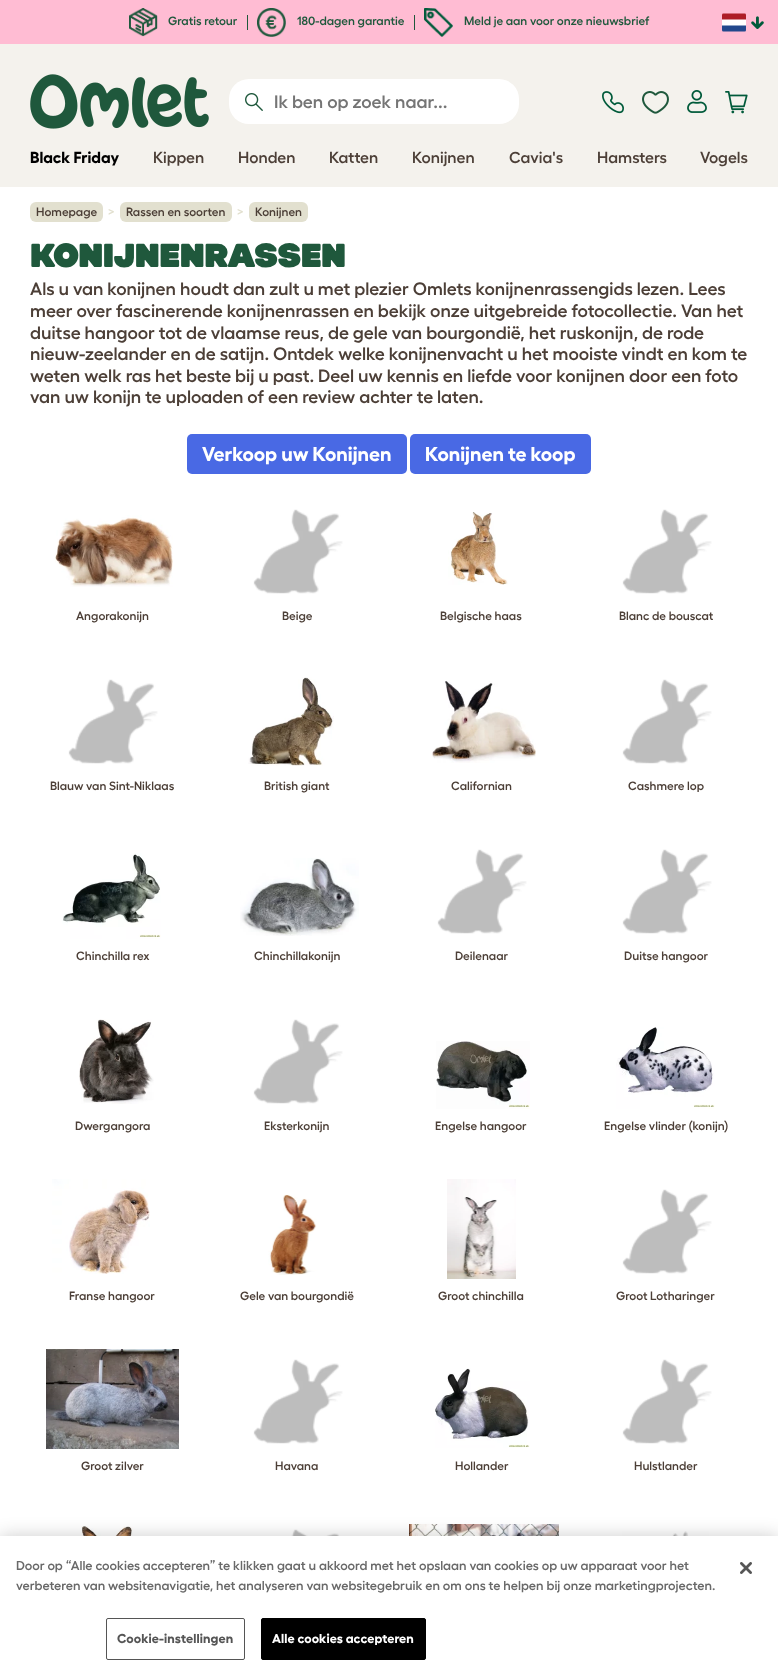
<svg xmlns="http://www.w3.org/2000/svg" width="778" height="1678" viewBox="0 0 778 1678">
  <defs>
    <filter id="blur1" x="-50%" y="-200%" width="200%" height="500%"><feGaussianBlur stdDeviation="9"/></filter>
  </defs>
  <rect width="100%" height="100%" fill="#ffffff"/>
  <rect x="0" y="0" width="778" height="44" fill="#ffbcd3"/>
  <image x="129" y="8" width="29" height="29" href="img1.png"/>
  <text x="168" y="25" font-family="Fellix" font-size="12" font-weight="600" fill="#1f583c">Gratis retour</text>
  <rect x="247" y="15" width="1" height="15" fill="#1f583c"/>
  <image x="257" y="8" width="29" height="29" href="img2.png"/>
  <text x="297" y="25" font-family="Fellix" font-size="12" font-weight="600" fill="#1f583c">180-dagen garantie</text>
  <rect x="414" y="15" width="1" height="15" fill="#1f583c"/>
  <image x="424" y="8" width="29" height="29" href="img3.png"/>
  <text x="464" y="25" font-family="Fellix" font-size="12" font-weight="600" fill="#1f583c">Meld je aan voor onze nieuwsbrief</text>
  <image x="722" y="13" width="24" height="19" href="img4.png"/>
  <image x="751" y="16" width="13" height="13" href="img5.png"/>
  <rect x="0" y="44" width="778" height="143" fill="#f4f2ed"/>
  <image x="30" y="74" width="179" height="55" href="img6.png"/>
  <rect x="229" y="79" width="290" height="45" rx="20" fill="#ffffff"/>
  <image x="245" y="93" width="18" height="18" href="img7.png"/>
  <text x="274" y="108" font-family="Fellix" font-size="18" font-weight="600" fill="#757575">Ik ben op zoek naar...</text>
  <image x="602" y="91" width="22" height="23" href="img8.png"/>
  <image x="642" y="91" width="27" height="23" href="img9.png"/>
  <image x="687" y="90" width="20" height="23" href="img10.png"/>
  <image x="725" y="91" width="23" height="23" href="img11.png"/>
  <text x="30" y="163" font-family="Fellix" font-size="16" font-weight="bold" fill="#000000">Black Friday</text>
  <text x="153" y="163" font-family="Fellix" font-size="16" font-weight="600" fill="#4c3f37">Kippen</text>
  <text x="238" y="163" font-family="Fellix" font-size="16" font-weight="600" fill="#4c3f37">Honden</text>
  <text x="329" y="163" font-family="Fellix" font-size="16" font-weight="600" fill="#4c3f37">Katten</text>
  <text x="412" y="163" font-family="Fellix" font-size="16" font-weight="600" fill="#4c3f37">Konijnen</text>
  <text x="509" y="163" font-family="Fellix" font-size="16" font-weight="600" fill="#4c3f37">Cavia's</text>
  <text x="597" y="163" font-family="Fellix" font-size="16" font-weight="600" fill="#4c3f37">Hamsters</text>
  <text x="700" y="163" font-family="Fellix" font-size="16" font-weight="600" fill="#4c3f37">Vogels</text>
  <rect x="30" y="202" width="73" height="20" rx="6" fill="#e2e0cf"/>
  <text x="36" y="216" font-family="Fellix" font-size="12" font-weight="600" fill="#4c3f37">Homepage</text>
  <text x="108" y="216" font-family="Fellix" font-size="12" font-weight="600" fill="#e2e0cf">&gt;</text>
  <rect x="120" y="202" width="112" height="20" rx="6" fill="#e2e0cf"/>
  <text x="126" y="216" font-family="Fellix" font-size="12" font-weight="600" fill="#4c3f37">Rassen en soorten</text>
  <text x="237" y="216" font-family="Fellix" font-size="12" font-weight="600" fill="#e2e0cf">&gt;</text>
  <rect x="249" y="202" width="59" height="20" rx="6" fill="#e2e0cf"/>
  <text x="255" y="216" font-family="Fellix" font-size="12" font-weight="600" fill="#4c3f37">Konijnen</text>
  <text x="30" y="267" font-family="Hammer" font-size="34.25" font-weight="bold" letter-spacing="-0.5" fill="#1f583c">KONIJNENRASSEN</text>
  <text x="30" y="295" font-family="Fellix" font-size="18" font-weight="600" fill="#4c3f37">Als u van konijnen houdt dan zult u met plezier Omlets konijnenrassengids lezen. Lees</text>
  <text x="30" y="317" font-family="Fellix" font-size="18" font-weight="600" fill="#4c3f37">meer over fascinerende konijnenrassen en bekijk onze uitgebreide fotocollectie. Van het</text>
  <text x="30" y="339" font-family="Fellix" font-size="18" font-weight="600" fill="#4c3f37">duitse hangoor tot de vlaamse reus, de gele van bourgondië, het ruskonijn, de rode</text>
  <text x="30" y="360" font-family="Fellix" font-size="18" font-weight="600" fill="#4c3f37">nieuw-zeelander en de satijn. Ontdek welke konijnenvacht u het mooiste vindt en kom te</text>
  <text x="30" y="382" font-family="Fellix" font-size="18" font-weight="600" fill="#4c3f37">weten welk ras het beste bij u past. Deel uw kennis en liefde voor konijnen door een foto</text>
  <text x="30" y="403" font-family="Fellix" font-size="18" font-weight="600" fill="#4c3f37">van uw konijn te uploaden of een review achter te laten.</text>
  <rect x="187" y="434" width="220" height="40" rx="5" fill="#4969e4"/>
  <text x="202" y="461" font-family="Fellix" font-size="20" font-weight="bold" fill="#ffffff">Verkoop uw Konijnen</text>
  <rect x="410" y="434" width="181" height="40" rx="5" fill="#4969e4"/>
  <text x="425" y="461" font-family="Fellix" font-size="20" font-weight="bold" fill="#ffffff">Konijnen te koop</text>
  <image x="55" y="515" width="118" height="72" href="img12.png"/>
  <text x="76" y="620" font-family="Fellix" font-size="12" font-weight="600" fill="#4c3f37">Angorakonijn</text>
  <image x="253" y="509" width="90" height="85" href="img13.png"/>
  <text x="282" y="620" font-family="Fellix" font-size="12" font-weight="600" fill="#4c3f37">Beige</text>
  <image x="448" y="512" width="60" height="73" href="img14.png"/>
  <text x="440" y="620" font-family="Fellix" font-size="12" font-weight="600" fill="#4c3f37">Belgische haas</text>
  <image x="622" y="509" width="90" height="85" href="img13.png"/>
  <text x="619" y="620" font-family="Fellix" font-size="12" font-weight="600" fill="#4c3f37">Blanc de bouscat</text>
  <image x="68" y="679" width="90" height="85" href="img13.png"/>
  <text x="50" y="790" font-family="Fellix" font-size="12" font-weight="600" fill="#4c3f37">Blauw van Sint-Niklaas</text>
  <image x="248" y="677" width="86" height="89" href="img15.png"/>
  <text x="264" y="790" font-family="Fellix" font-size="12" font-weight="600" fill="#4c3f37">British giant</text>
  <image x="432" y="681" width="104" height="82" href="img16.png"/>
  <text x="451" y="790" font-family="Fellix" font-size="12" font-weight="600" fill="#4c3f37">Californian</text>
  <image x="622" y="679" width="90" height="85" href="img13.png"/>
  <text x="628" y="790" font-family="Fellix" font-size="12" font-weight="600" fill="#4c3f37">Cashmere lop</text>
  <image x="62" y="853" width="99" height="86" href="img17.png"/>
  <text x="76" y="960" font-family="Fellix" font-size="12" font-weight="600" fill="#4c3f37">Chinchilla rex</text>
  <image x="240" y="858" width="119" height="78" href="img18.png"/>
  <text x="254" y="960" font-family="Fellix" font-size="12" font-weight="600" fill="#4c3f37">Chinchillakonijn</text>
  <image x="437" y="849" width="90" height="85" href="img13.png"/>
  <text x="455" y="960" font-family="Fellix" font-size="12" font-weight="600" fill="#4c3f37">Deilenaar</text>
  <image x="622" y="849" width="90" height="85" href="img13.png"/>
  <text x="624" y="960" font-family="Fellix" font-size="12" font-weight="600" fill="#4c3f37">Duitse hangoor</text>
  <image x="79" y="1019" width="75" height="85" href="img19.png"/>
  <text x="75" y="1130" font-family="Fellix" font-size="12" font-weight="600" fill="#4c3f37">Dwergangora</text>
  <image x="253" y="1019" width="90" height="85" href="img13.png"/>
  <text x="264" y="1130" font-family="Fellix" font-size="12" font-weight="600" fill="#4c3f37">Eksterkonijn</text>
  <image x="436" y="1041" width="94" height="68" href="img20.png"/>
  <text x="435" y="1130" font-family="Fellix" font-size="12" font-weight="600" fill="#4c3f37">Engelse hangoor</text>
  <image x="616" y="1027" width="99" height="82" href="img21.png"/>
  <text x="604" y="1130" font-family="Fellix" font-size="12" font-weight="600" fill="#4c3f37">Engelse vlinder (konijn)</text>
  <image x="52" y="1179" width="98" height="95" href="img22.png"/>
  <text x="69" y="1300" font-family="Fellix" font-size="12" font-weight="600" fill="#4c3f37">Franse hangoor</text>
  <image x="268" y="1194" width="49" height="81" href="img23.png"/>
  <text x="240" y="1300" font-family="Fellix" font-size="12" font-weight="600" fill="#4c3f37">Gele van bourgondië</text>
  <image x="447" y="1179" width="69" height="100" href="img24.png"/>
  <text x="438" y="1300" font-family="Fellix" font-size="12" font-weight="600" fill="#4c3f37">Groot chinchilla</text>
  <image x="622" y="1189" width="90" height="85" href="img13.png"/>
  <text x="616" y="1300" font-family="Fellix" font-size="12" font-weight="600" fill="#4c3f37">Groot Lotharinger</text>
  <image x="46" y="1349" width="133" height="100" href="img25.png"/>
  <text x="81" y="1470" font-family="Fellix" font-size="12" font-weight="600" fill="#4c3f37">Groot zilver</text>
  <image x="253" y="1359" width="90" height="85" href="img13.png"/>
  <text x="275" y="1470" font-family="Fellix" font-size="12" font-weight="600" fill="#4c3f37">Havana</text>
  <image x="435" y="1368" width="95" height="80" href="img26.png"/>
  <text x="455" y="1470" font-family="Fellix" font-size="12" font-weight="600" fill="#4c3f37">Hollander</text>
  <image x="622" y="1359" width="90" height="85" href="img13.png"/>
  <text x="634" y="1470" font-family="Fellix" font-size="12" font-weight="600" fill="#4c3f37">Hulstlander</text>
  <image x="81" y="1526" width="63" height="10" href="img27.png"/>
  <image x="291" y="1529" width="49" height="7" href="img28.png"/>
  <image x="409" y="1524" width="150" height="12" href="img29.png"/>
  <image x="622" y="1531" width="87" height="5" href="img30.png"/>
  <rect x="0" y="1536" width="778" height="142" fill="#000000" fill-opacity="0.2" filter="url(#blur1)"/>
  <rect x="0" y="1536" width="778" height="142" fill="#ffffff"/>
  <text x="16" y="1570" font-family="Fellix" font-size="13" font-weight="600" fill="#696969">Door op “Alle cookies accepteren” te klikken gaat u akkoord met het opslaan van cookies op uw apparaat voor het</text>
  <text x="16" y="1590" font-family="Fellix" font-size="13" font-weight="600" fill="#696969">verbeteren van websitenavigatie, het analyseren van websitegebruik en om ons te helpen bij onze marketingprojecten.</text>
  <rect x="106.5" y="1618.5" width="138" height="41" rx="1.5" fill="none" stroke="#555555"/>
  <text x="117" y="1643" font-family="Fellix" font-size="13" font-weight="bold" letter-spacing="0.1" fill="#555555">Cookie-instellingen</text>
  <rect x="261.5" y="1618.5" width="164" height="41" rx="1.5" fill="#000000" stroke="#000000"/>
  <text x="272" y="1643" font-family="Fellix" font-size="13" font-weight="bold" letter-spacing="0.1" fill="#ffffff">Alle cookies accepteren</text>
  <image x="740" y="1562" width="12" height="12" href="img31.png"/>
</svg>
